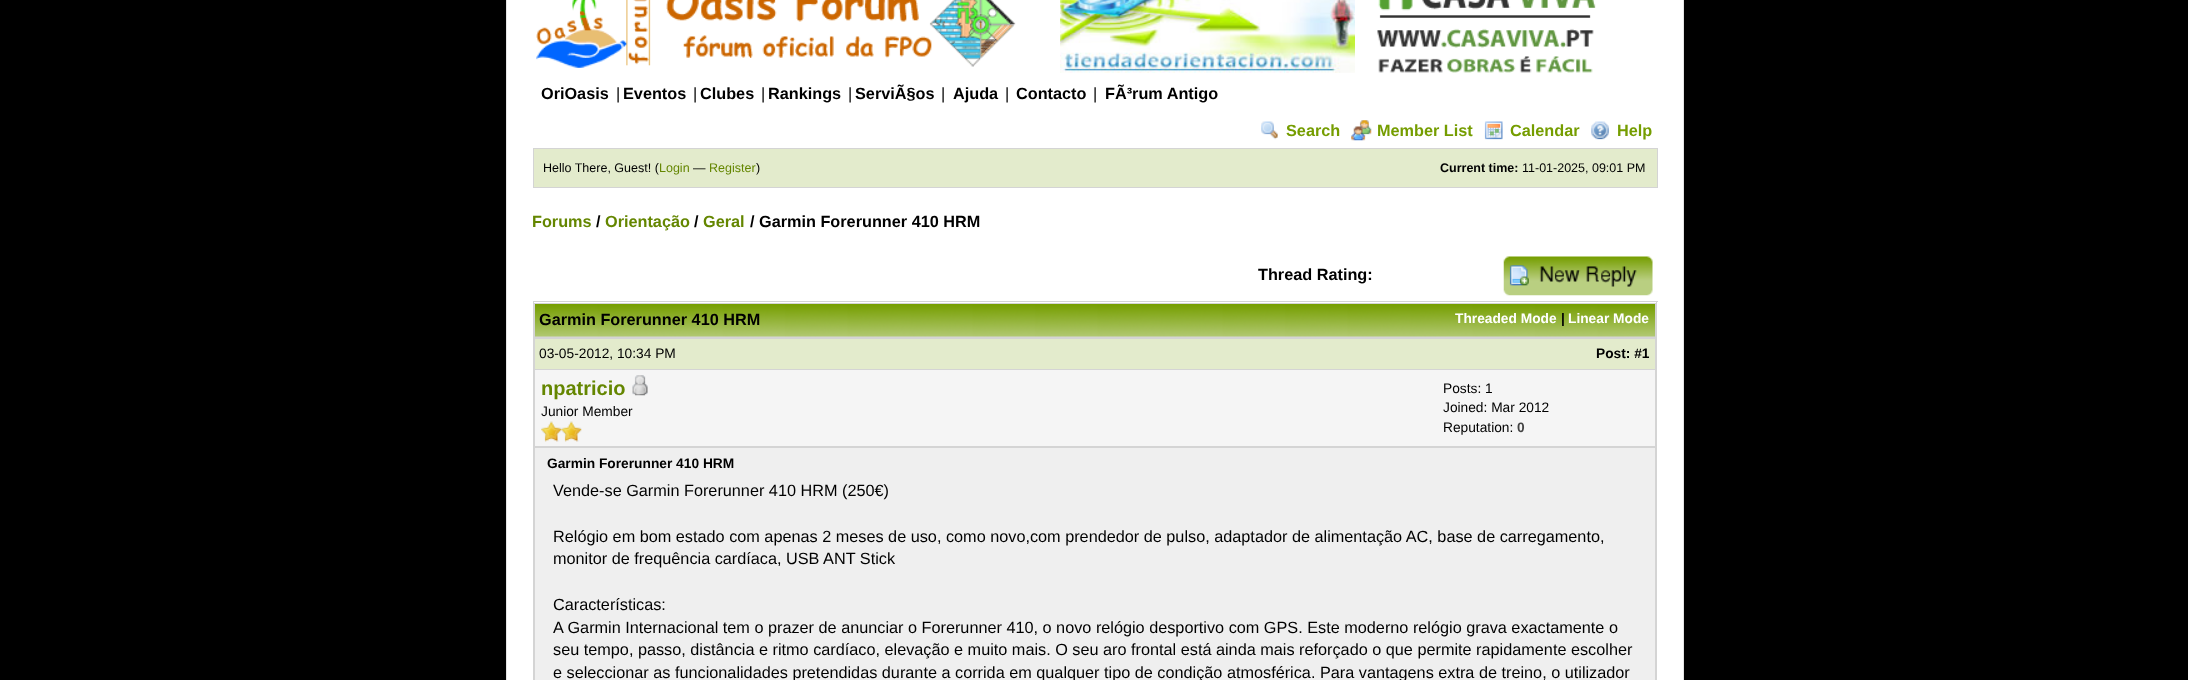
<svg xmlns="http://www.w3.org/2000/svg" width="2188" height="680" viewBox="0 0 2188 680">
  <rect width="100%" height="100%" fill="#000000"/>
  <rect x="506.5" y="-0.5" width="1177" height="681" fill="#ffffff" stroke="#e4e4e4"/>
  <image x="536" y="0" width="480" height="68" href="img1.png"/>
  <image x="1060" y="0" width="295" height="73" href="img2.png"/>
  <image x="1377" y="0" width="219" height="73" href="img3.png"/>
  <text x="541" y="99" font-family="Liberation Sans" font-size="16.25" font-weight="bold" fill="#000000">OriOasis</text>
  <text x="616" y="99" font-family="Liberation Sans" font-size="16.25" fill="#000000">|</text>
  <text x="623" y="99" font-family="Liberation Sans" font-size="16.25" font-weight="bold" fill="#000000">Eventos</text>
  <text x="693" y="99" font-family="Liberation Sans" font-size="16.25" fill="#000000">|</text>
  <text x="700" y="99" font-family="Liberation Sans" font-size="16.25" font-weight="bold" fill="#000000">Clubes</text>
  <text x="761" y="99" font-family="Liberation Sans" font-size="16.25" fill="#000000">|</text>
  <text x="768" y="99" font-family="Liberation Sans" font-size="16.25" font-weight="bold" fill="#000000">Rankings</text>
  <text x="848" y="99" font-family="Liberation Sans" font-size="16.25" fill="#000000">|</text>
  <text x="855" y="99" font-family="Liberation Sans" font-size="16.25" font-weight="bold" fill="#000000">ServiÃ§os</text>
  <text x="941" y="99" font-family="Liberation Sans" font-size="16.25" fill="#000000">|</text>
  <text x="953" y="99" font-family="Liberation Sans" font-size="16.25" font-weight="bold" fill="#000000">Ajuda</text>
  <text x="1005" y="99" font-family="Liberation Sans" font-size="16.25" fill="#000000">|</text>
  <text x="1016" y="99" font-family="Liberation Sans" font-size="16.25" font-weight="bold" fill="#000000">Contacto</text>
  <text x="1093" y="99" font-family="Liberation Sans" font-size="16.25" fill="#000000">|</text>
  <text x="1105" y="99" font-family="Liberation Sans" font-size="16.25" font-weight="bold" fill="#000000">FÃ³rum Antigo</text>
  <image x="1261" y="121" width="17" height="19" href="img4.png"/>
  <text x="1286" y="136" font-family="Liberation Sans" font-size="16.25" font-weight="bold" fill="#759d00">Search</text>
  <image x="1351" y="120" width="21" height="21" href="img5.png"/>
  <text x="1377" y="136" font-family="Liberation Sans" font-size="16.25" font-weight="bold" fill="#759d00">Member List</text>
  <image x="1484" y="121" width="19" height="19" href="img6.png"/>
  <text x="1510" y="136" font-family="Liberation Sans" font-size="16.25" font-weight="bold" fill="#759d00">Calendar</text>
  <image x="1591" y="121" width="18" height="19" href="img7.png"/>
  <text x="1617" y="136" font-family="Liberation Sans" font-size="16.25" font-weight="bold" fill="#759d00">Help</text>
  <rect x="533.5" y="148.5" width="1124" height="39" fill="#e3ebcc" stroke="#d4d4d4"/>
  <text x="543" y="172" font-family="Liberation Sans" font-size="12.5" fill="#000000">Hello There, Guest! (</text>
  <text x="659" y="172" font-family="Liberation Sans" font-size="12.5" fill="#648600">Login</text>
  <text x="693" y="172" font-family="Liberation Sans" font-size="12.5" fill="#000000">—</text>
  <text x="709" y="172" font-family="Liberation Sans" font-size="12.5" fill="#648600">Register</text>
  <text x="756" y="172" font-family="Liberation Sans" font-size="12.5" fill="#000000">)</text>
  <text x="1440" y="172" font-family="Liberation Sans" font-size="12.5" font-weight="bold" fill="#000000">Current time:</text>
  <text x="1522" y="172" font-family="Liberation Sans" font-size="12.5" fill="#000000">11-01-2025, 09:01 PM</text>
  <text x="532" y="227" font-family="Liberation Sans" font-size="16.25" font-weight="bold" fill="#648600">Forums</text>
  <text x="596" y="227" font-family="Liberation Sans" font-size="16.25" font-weight="bold" fill="#000000">/</text>
  <text x="605" y="227" font-family="Liberation Sans" font-size="16.25" font-weight="bold" fill="#648600">Orientação</text>
  <text x="694" y="227" font-family="Liberation Sans" font-size="16.25" font-weight="bold" fill="#000000">/</text>
  <text x="703" y="227" font-family="Liberation Sans" font-size="16.25" font-weight="bold" fill="#648600">Geral</text>
  <text x="750" y="227" font-family="Liberation Sans" font-size="16.25" font-weight="bold" fill="#000000">/ Garmin Forerunner 410 HRM</text>
  <text x="1258" y="280" font-family="Liberation Sans" font-size="16.25" font-weight="bold" fill="#000000">Thread Rating:</text>
  <image x="1503" y="256" width="150" height="40" href="img8.png"/>
  <rect x="534" y="303" width="1122" height="377" fill="#d4d4d4"/>
  <rect x="533" y="301" width="1125" height="1" fill="#d4d4d4"/>
  <rect x="1656" y="301" width="1" height="379" fill="#d4d4d4"/>
  <rect x="533" y="301" width="1" height="379" fill="#d4d4d4"/>
  <image x="535" y="304" width="1120" height="33" href="img9.png"/>
  <text x="539" y="325" font-family="Liberation Sans" font-size="16.25" font-weight="bold" fill="#000000">Garmin Forerunner 410 HRM</text>
  <text x="1455" y="323" font-family="Liberation Sans" font-size="13.75" font-weight="bold" fill="#ffffff">Threaded Mode</text>
  <text x="1561" y="323" font-family="Liberation Sans" font-size="13.75" font-weight="bold" fill="#000000">|</text>
  <text x="1568" y="323" font-family="Liberation Sans" font-size="13.75" font-weight="bold" fill="#ffffff">Linear Mode</text>
  <rect x="535" y="339" width="1120" height="30" fill="#e3ebcc"/>
  <text x="539" y="358" font-family="Liberation Sans" font-size="13.75" fill="#000000">03-05-2012, 10:34 PM</text>
  <text x="1596" y="358" font-family="Liberation Sans" font-size="13.75" font-weight="bold" fill="#000000">Post: #1</text>
  <rect x="535" y="370" width="1120" height="76" fill="#f5f5f5"/>
  <text x="541" y="395" font-family="Liberation Sans" font-size="20" font-weight="bold" fill="#648600">npatricio</text>
  <image x="632" y="375" width="16" height="21" href="img10.png"/>
  <text x="541" y="416" font-family="Liberation Sans" font-size="13.75" fill="#000000">Junior Member</text>
  <image x="541" y="421" width="21" height="21" href="img11.png"/>
  <image x="561" y="421" width="21" height="21" href="img12.png"/>
  <text x="1443" y="393" font-family="Liberation Sans" font-size="13.75" fill="#000000">Posts: 1</text>
  <text x="1443" y="412" font-family="Liberation Sans" font-size="13.75" fill="#000000">Joined: Mar 2012</text>
  <text x="1443" y="432" font-family="Liberation Sans" font-size="13.75" fill="#000000">Reputation:</text>
  <text x="1517" y="432" font-family="Liberation Sans" font-size="13.75" font-weight="bold" fill="#444444">0</text>
  <rect x="535" y="448" width="1120" height="232" fill="#efefef"/>
  <text x="547" y="468" font-family="Liberation Sans" font-size="13.75" font-weight="bold" fill="#000000">Garmin Forerunner 410 HRM</text>
  <text x="553" y="496" font-family="Liberation Sans" font-size="16.25" fill="#000000">Vende-se Garmin Forerunner 410 HRM (250€)</text>
  <text x="553" y="542" font-family="Liberation Sans" font-size="16.25" fill="#000000">Relógio em bom estado com apenas 2 meses de uso, como novo,com prendedor de pulso, adaptador de alimentação AC, base de carregamento,</text>
  <text x="553" y="564" font-family="Liberation Sans" font-size="16.25" fill="#000000">monitor de frequência cardíaca, USB ANT Stick</text>
  <text x="553" y="610" font-family="Liberation Sans" font-size="16.25" fill="#000000">Características:</text>
  <text x="553" y="633" font-family="Liberation Sans" font-size="16.25" fill="#000000">A Garmin Internacional tem o prazer de anunciar o Forerunner 410, o novo relógio desportivo com GPS. Este moderno relógio grava exactamente o</text>
  <text x="553" y="655" font-family="Liberation Sans" font-size="16.25" fill="#000000">seu tempo, passo, distância e ritmo cardíaco, elevação e muito mais. O seu aro frontal está ainda mais reforçado o que permite rapidamente escolher</text>
  <text x="553" y="678" font-family="Liberation Sans" font-size="16.25" fill="#000000">e seleccionar as funcionalidades pretendidas durante a corrida em qualquer tipo de condição atmosférica. Para vantagens extra de treino, o utilizador</text>
</svg>
